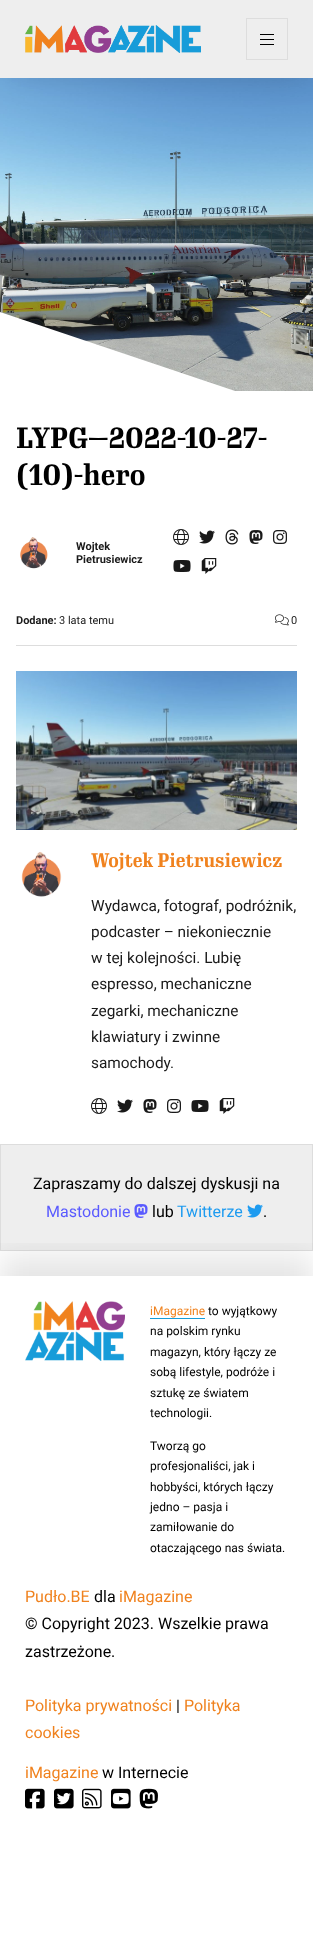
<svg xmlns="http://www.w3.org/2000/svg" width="313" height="1934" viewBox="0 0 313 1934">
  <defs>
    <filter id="blur1" x="-50%" y="-200%" width="200%" height="500%"><feGaussianBlur stdDeviation="15"/></filter>
    <clipPath id="clip1"><rect x="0" y="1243" width="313" height="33"/></clipPath>
  </defs>
  <rect width="100%" height="100%" fill="#ffffff"/>
  <image x="0" y="78" width="313" height="313" href="img2.png"/>
  <rect x="10" y="20" width="293" height="58" fill="#000000" fill-opacity="0.1" filter="url(#blur1)"/>
  <rect x="0" y="0" width="313" height="78" fill="#eeeeee"/>
  <image x="25" y="25" width="176" height="28" href="img1.png"/>
  <rect x="246.5" y="18.5" width="41" height="41" fill="none" stroke="#dddddd"/>
  <rect x="260" y="44" width="14" height="1" fill="#000000"/>
  <rect x="260" y="34" width="14" height="1" fill="#000000"/>
  <rect x="260" y="39" width="14" height="1" fill="#000000"/>
  <path d="M0 312V396H250Z" fill="#ffffff"/>
  <text x="16" y="448" font-family="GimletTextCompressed" font-size="28.75" font-weight="bold" fill="#000000">LYPG—2022-10-27-</text>
  <text x="16" y="485" font-family="GimletTextCompressed" font-size="28.75" font-weight="bold" fill="#000000">(10)-hero</text>
  <rect x="16" y="645" width="281" height="1" fill="#dddddd"/>
  <image x="20" y="537" width="28" height="32" href="img3.png"/>
  <text x="76" y="550" font-family="Roboto" font-size="11" font-weight="bold" fill="#1a1a1a">Wojtek</text>
  <text x="76" y="563" font-family="Roboto" font-size="11" font-weight="bold" fill="#1a1a1a">Pietrusiewicz</text>
  <image x="173" y="529" width="16" height="16" href="img4.png"/>
  <image x="199" y="530" width="16" height="14" href="img5.png"/>
  <image x="225" y="529" width="14" height="16" href="img6.png"/>
  <image x="249" y="530" width="14" height="14" href="img7.png"/>
  <image x="273" y="530" width="14" height="14" href="img8.png"/>
  <image x="173" y="560" width="18" height="12" href="img9.png"/>
  <image x="201" y="558" width="16" height="16" href="img10.png"/>
  <text x="16" y="624" font-family="Roboto" font-size="11" font-weight="bold" fill="#1a1a1a">Dodane:</text>
  <text x="59" y="624" font-family="Roboto" font-size="11" fill="#1a1a1a">3 lata temu</text>
  <image x="275" y="614" width="14" height="12" href="img11.png"/>
  <text x="291" y="624" font-family="Roboto" font-size="11" fill="#1a1a1a">0</text>
  <image x="16" y="671" width="281" height="159" href="img12.png"/>
  <image x="21" y="851" width="41" height="46" href="img13.png"/>
  <text x="91" y="867" font-family="GimletTextCompressed" font-size="19.25" font-weight="bold" fill="#f0821e">Wojtek Pietrusiewicz</text>
  <text x="91" y="911" font-family="Roboto" font-size="15.4" fill="#1a1a1a">Wydawca, fotograf, podróżnik,</text>
  <text x="91" y="937" font-family="Roboto" font-size="15.4" fill="#1a1a1a">podcaster – niekoniecznie</text>
  <text x="91" y="963" font-family="Roboto" font-size="15.4" fill="#1a1a1a">w tej kolejności. Lubię</text>
  <text x="91" y="989" font-family="Roboto" font-size="15.4" fill="#1a1a1a">espresso, mechaniczne</text>
  <text x="91" y="1016" font-family="Roboto" font-size="15.4" fill="#1a1a1a">zegarki, mechaniczne</text>
  <text x="91" y="1042" font-family="Roboto" font-size="15.4" fill="#1a1a1a">klawiatury i zwinne</text>
  <text x="91" y="1068" font-family="Roboto" font-size="15.4" fill="#1a1a1a">samochody.</text>
  <image x="91" y="1098" width="16" height="16" href="img4.png"/>
  <image x="117" y="1099" width="16" height="14" href="img5.png"/>
  <image x="143" y="1099" width="14" height="14" href="img7.png"/>
  <image x="167" y="1099" width="14" height="14" href="img8.png"/>
  <image x="191" y="1100" width="18" height="12" href="img9.png"/>
  <image x="219" y="1098" width="16" height="16" href="img10.png"/>
  <rect x="0.5" y="1144.5" width="312" height="106" fill="#eeeeee" stroke="#dddddd"/>
  <text x="33" y="1189" font-family="Roboto" font-size="16" fill="#000000">Zapraszamy do dalszej dyskusji na</text>
  <g clip-path="url(#clip1)">
    <rect x="0" y="1256" width="313" height="564" fill="#000000" fill-opacity="0.1" filter="url(#blur1)"/>
  </g>
  <text x="46" y="1217" font-family="Roboto" font-size="16" fill="#595aff">Mastodonie</text>
  <image x="134" y="1204" width="14" height="14" href="img14.png"/>
  <text x="152" y="1217" font-family="Roboto" font-size="16" fill="#000000">lub</text>
  <text x="177" y="1217" font-family="Roboto" font-size="16" fill="#1d9bf0">Twitterze</text>
  <image x="247" y="1204" width="16" height="14" href="img15.png"/>
  <text x="263" y="1217" font-family="Roboto" font-size="16" fill="#000000">.</text>
  <image x="25" y="1301" width="100" height="60" href="img16.png"/>
  <text x="150" y="1315" font-family="Roboto" font-size="12" fill="#f0821e">iMagazine</text>
  <rect x="150" y="1318" width="55" height="1" fill="#179cd9"/>
  <text x="208" y="1315" font-family="Roboto" font-size="12" fill="#000000">to wyjątkowy</text>
  <text x="150" y="1335" font-family="Roboto" font-size="12" fill="#000000">na polskim rynku</text>
  <text x="150" y="1356" font-family="Roboto" font-size="12" fill="#000000">magazyn, który łączy ze</text>
  <text x="150" y="1376" font-family="Roboto" font-size="12" fill="#000000">sobą lifestyle, podróże i</text>
  <text x="150" y="1397" font-family="Roboto" font-size="12" fill="#000000">sztukę ze światem</text>
  <text x="150" y="1417" font-family="Roboto" font-size="12" fill="#000000">technologii.</text>
  <text x="150" y="1450" font-family="Roboto" font-size="12" fill="#000000">Tworzą go</text>
  <text x="150" y="1470" font-family="Roboto" font-size="12" fill="#000000">profesjonaliści, jak i</text>
  <text x="150" y="1491" font-family="Roboto" font-size="12" fill="#000000">hobbyści, których łączy</text>
  <text x="150" y="1511" font-family="Roboto" font-size="12" fill="#000000">jedno – pasja i</text>
  <text x="150" y="1531" font-family="Roboto" font-size="12" fill="#000000">zamiłowanie do</text>
  <text x="150" y="1552" font-family="Roboto" font-size="12" fill="#000000">otaczającego nas świata.</text>
  <text x="25" y="1602" font-family="Roboto" font-size="16" fill="#f0821e">Pudło.BE</text>
  <text x="94" y="1602" font-family="Roboto" font-size="16" fill="#000000">dla</text>
  <text x="119" y="1602" font-family="Roboto" font-size="16" fill="#f0821e">iMagazine</text>
  <text x="25" y="1629" font-family="Roboto" font-size="16" fill="#000000">© Copyright 2023. Wszelkie prawa</text>
  <text x="25" y="1657" font-family="Roboto" font-size="16" fill="#000000">zastrzeżone.</text>
  <text x="25" y="1711" font-family="Roboto" font-size="16" fill="#f0821e">Polityka prywatności</text>
  <text x="176" y="1711" font-family="Roboto" font-size="16" fill="#000000">|</text>
  <text x="184" y="1711" font-family="Roboto" font-size="16" fill="#f0821e">Polityka</text>
  <text x="25" y="1738" font-family="Roboto" font-size="16" fill="#f0821e">cookies</text>
  <text x="25" y="1778" font-family="Roboto" font-size="16" fill="#f0821e">iMagazine</text>
  <text x="102" y="1778" font-family="Roboto" font-size="16" fill="#000000">w Internecie</text>
  <image x="25" y="1788" width="20" height="21" href="img17.png"/>
  <image x="54" y="1788" width="20" height="21" href="img18.png"/>
  <image x="82" y="1788" width="20" height="21" href="img19.png"/>
  <image x="111" y="1788" width="20" height="21" href="img20.png"/>
  <image x="139" y="1788" width="19" height="21" href="img21.png"/>
</svg>
